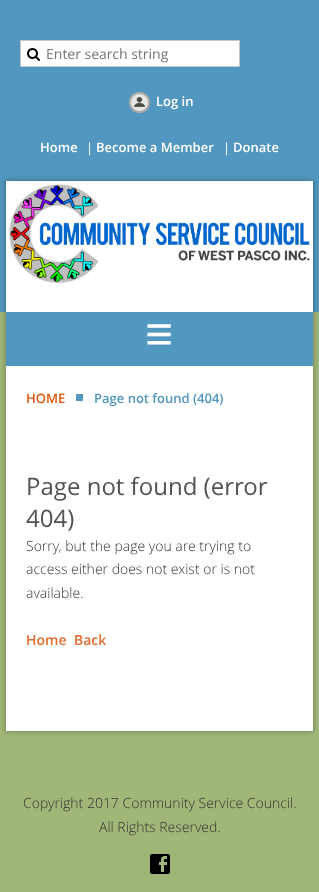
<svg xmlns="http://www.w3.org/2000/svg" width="319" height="892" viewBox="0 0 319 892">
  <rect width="100%" height="100%" fill="#a0b778"/>
  <rect x="0" y="0" width="319" height="312" fill="#5297bf"/>
  <rect x="20.5" y="40.5" width="219" height="26" fill="#ffffff" stroke="#c6c6c6"/>
  <image x="27" y="48" width="13" height="13" href="img1.png"/>
  <text x="46" y="59" font-family="Open Sans" font-size="14" fill="#757575">Enter search string</text>
  <image x="129" y="92" width="21" height="21" href="img2.png"/>
  <text x="156" y="106" font-family="Open Sans" font-size="13" font-weight="600" fill="#ffffff">Log in</text>
  <text x="40" y="152" font-family="Open Sans" font-size="13" font-weight="600" fill="#ffffff">Home</text>
  <text x="86" y="152" font-family="Open Sans" font-size="13" fill="#ffffff">|</text>
  <text x="96" y="152" font-family="Open Sans" font-size="13" font-weight="600" fill="#ffffff">Become a Member</text>
  <text x="223" y="152" font-family="Open Sans" font-size="13" fill="#ffffff">|</text>
  <text x="233" y="152" font-family="Open Sans" font-size="13" font-weight="600" fill="#ffffff">Donate</text>
  <image x="3" y="177" width="313" height="4" href="img3.png"/>
  <image x="11" y="176" width="297" height="5" href="img4.png"/>
  <image x="1" y="181" width="317" height="131" href="img5.png"/>
  <rect x="6" y="181" width="307" height="131" fill="#ffffff"/>
  <image x="9" y="184" width="301" height="99" href="img6.png"/>
  <image x="1" y="312" width="317" height="54" href="img7.png"/>
  <rect x="6" y="312" width="307" height="54" fill="#5297bf"/>
  <text x="145" y="351" font-family="Liberation Serif" font-size="50" font-weight="bold" fill="#ffffff">≡</text>
  <image x="1" y="366" width="317" height="365" href="img8.png"/>
  <rect x="6" y="366" width="307" height="365" fill="#ffffff"/>
  <text x="26" y="403" font-family="Open Sans" font-size="13" font-weight="600" fill="#dd560b">HOME</text>
  <rect x="76" y="394" width="7" height="7" fill="#5297bf"/>
  <text x="94" y="403" font-family="Open Sans" font-size="13" font-weight="600" fill="#5297bf">Page not found (404)</text>
  <text x="26" y="495" font-family="Open Sans" font-size="24" fill="#525252">Page not found (error</text>
  <text x="26" y="527" font-family="Open Sans" font-size="24" fill="#525252">404)</text>
  <text x="26" y="551" font-family="Open Sans" font-size="14" font-weight="300" fill="#333333">Sorry, but the page you are trying to</text>
  <text x="26" y="574" font-family="Open Sans" font-size="14" font-weight="300" fill="#333333">access either does not exist or is not</text>
  <text x="26" y="598" font-family="Open Sans" font-size="14" font-weight="300" fill="#333333">available.</text>
  <text x="26" y="645" font-family="Open Sans" font-size="14" font-weight="600" fill="#e26d2c">Home</text>
  <text x="74" y="645" font-family="Open Sans" font-size="14" font-weight="600" fill="#e26d2c">Back</text>
  <image x="3" y="731" width="313" height="4" href="img9.png"/>
  <image x="11" y="731" width="297" height="5" href="img10.png"/>
  <text x="23" y="808" font-family="Open Sans" font-size="14" font-weight="300" fill="#333333">Copyright 2017 Community Service Council.</text>
  <text x="99" y="832" font-family="Open Sans" font-size="14" font-weight="300" fill="#333333">All Rights Reserved.</text>
  <image x="150" y="854" width="20" height="20" href="img11.png"/>
</svg>
